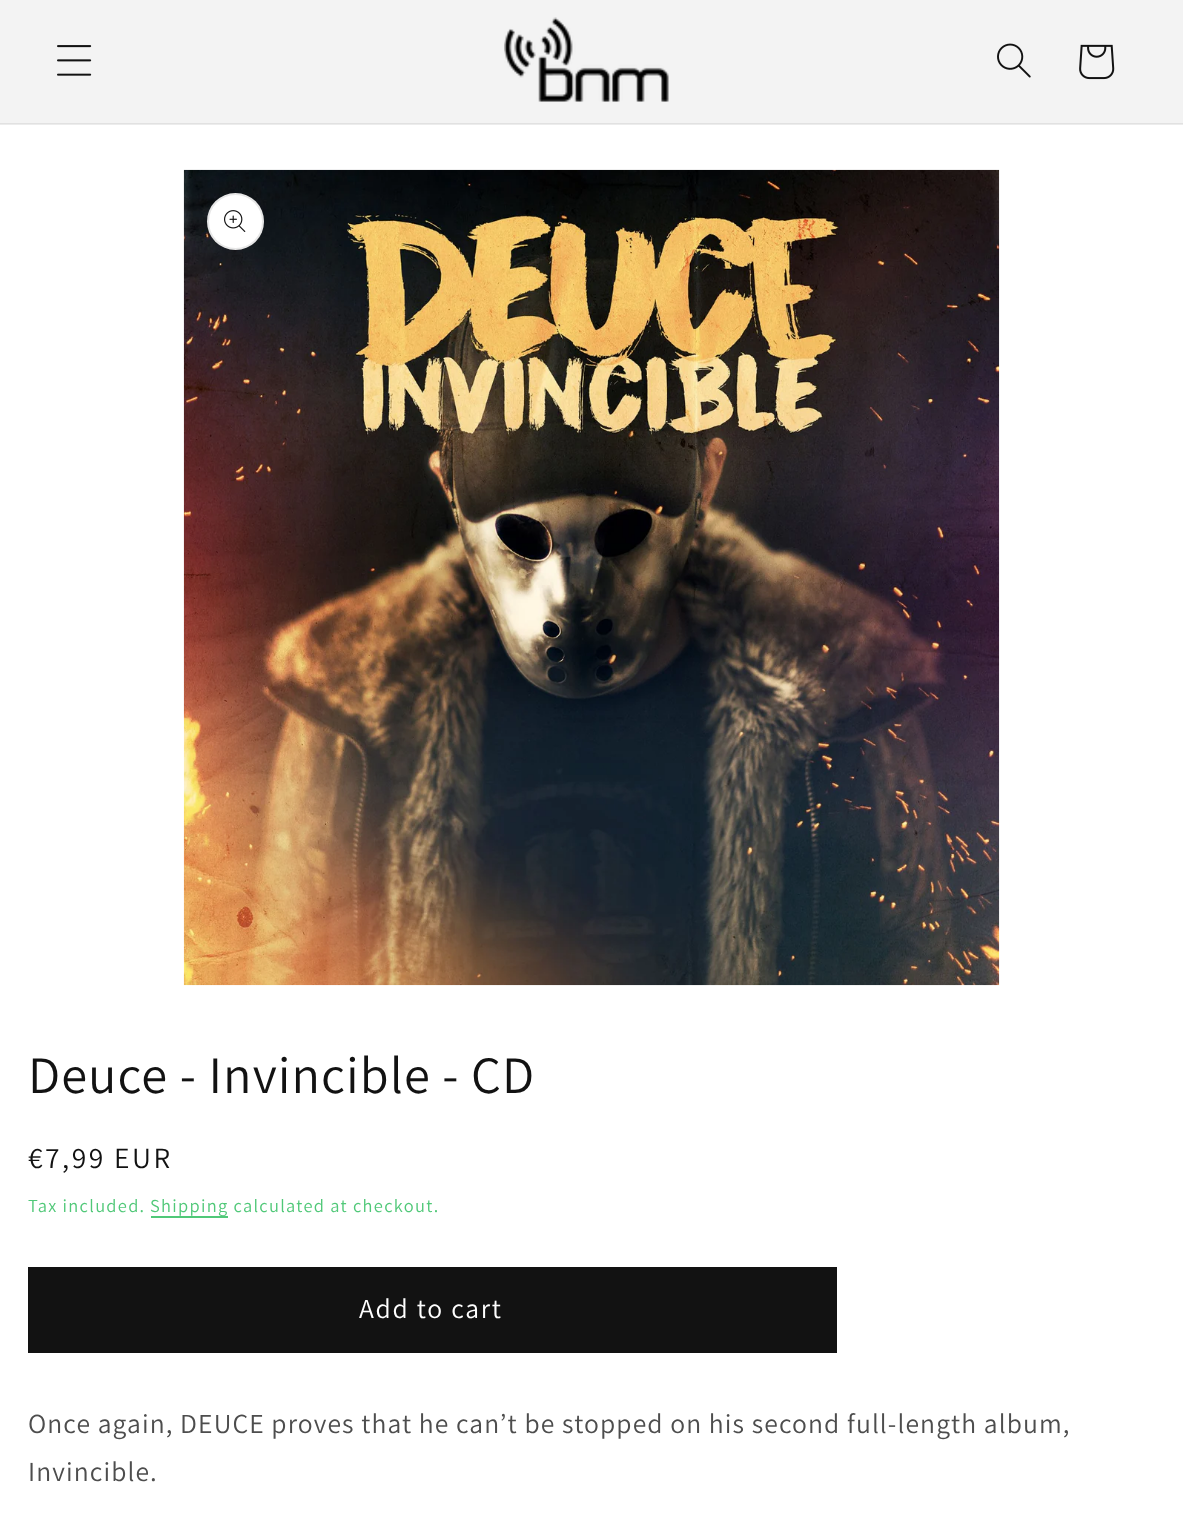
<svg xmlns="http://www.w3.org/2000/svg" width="1183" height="1515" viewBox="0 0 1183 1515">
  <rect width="100%" height="100%" fill="#ffffff"/>
  <rect x="0" y="124" width="1183" height="1" fill="#ececec"/>
  <rect x="0" y="0" width="1183" height="123" fill="#f3f3f3"/>
  <rect x="0" y="123" width="1183" height="1" fill="#e1e1e1"/>
  <image x="57" y="45" width="35" height="31" href="img1.png"/>
  <image x="504" y="17" width="165" height="85" href="img2.png"/>
  <image x="997" y="43" width="34" height="35" href="img3.png"/>
  <image x="1079" y="44" width="36" height="36" href="img4.png"/>
  <image x="183" y="169" width="817" height="817" href="img5.png"/>
  <circle cx="235.5" cy="221.5" r="28.5" fill="#ffffff"/>
  <circle cx="235.5" cy="221.5" r="27.5" fill="none" stroke="#121212" stroke-opacity="0.1" stroke-width="2"/>
  <image x="224" y="210" width="22" height="22" href="img6.png"/>
  <text x="28" y="1093" font-family="Assistant" font-size="52.5" letter-spacing="1.05" fill="#121212">Deuce - Invincible - CD</text>
  <text x="28" y="1168" font-family="Assistant" font-size="29.5" letter-spacing="2.5" fill="#121212">€7,99 EUR</text>
  <text x="28" y="1212" font-family="Assistant" font-size="18.4" letter-spacing="1.3" fill="#50c878">Tax included.</text>
  <rect x="151" y="1216" width="77" height="2" fill="#50c878"/>
  <text x="150" y="1212" font-family="Assistant" font-size="18.4" letter-spacing="1.3" fill="#50c878">Shipping calculated at checkout.</text>
  <rect x="28" y="1267" width="809" height="86" fill="#121212"/>
  <text x="359" y="1318" font-family="Assistant" font-size="27.55" letter-spacing="1.75" fill="#ffffff">Add to cart</text>
  <text x="28" y="1433" font-family="Assistant" font-size="27.55" letter-spacing="1.1" fill="#4d4d4d">Once again, DEUCE proves that he can’t be stopped on his second full-length album,</text>
  <text x="28" y="1481" font-family="Assistant" font-size="27.55" letter-spacing="1.1" fill="#4d4d4d">Invincible.</text>
</svg>
